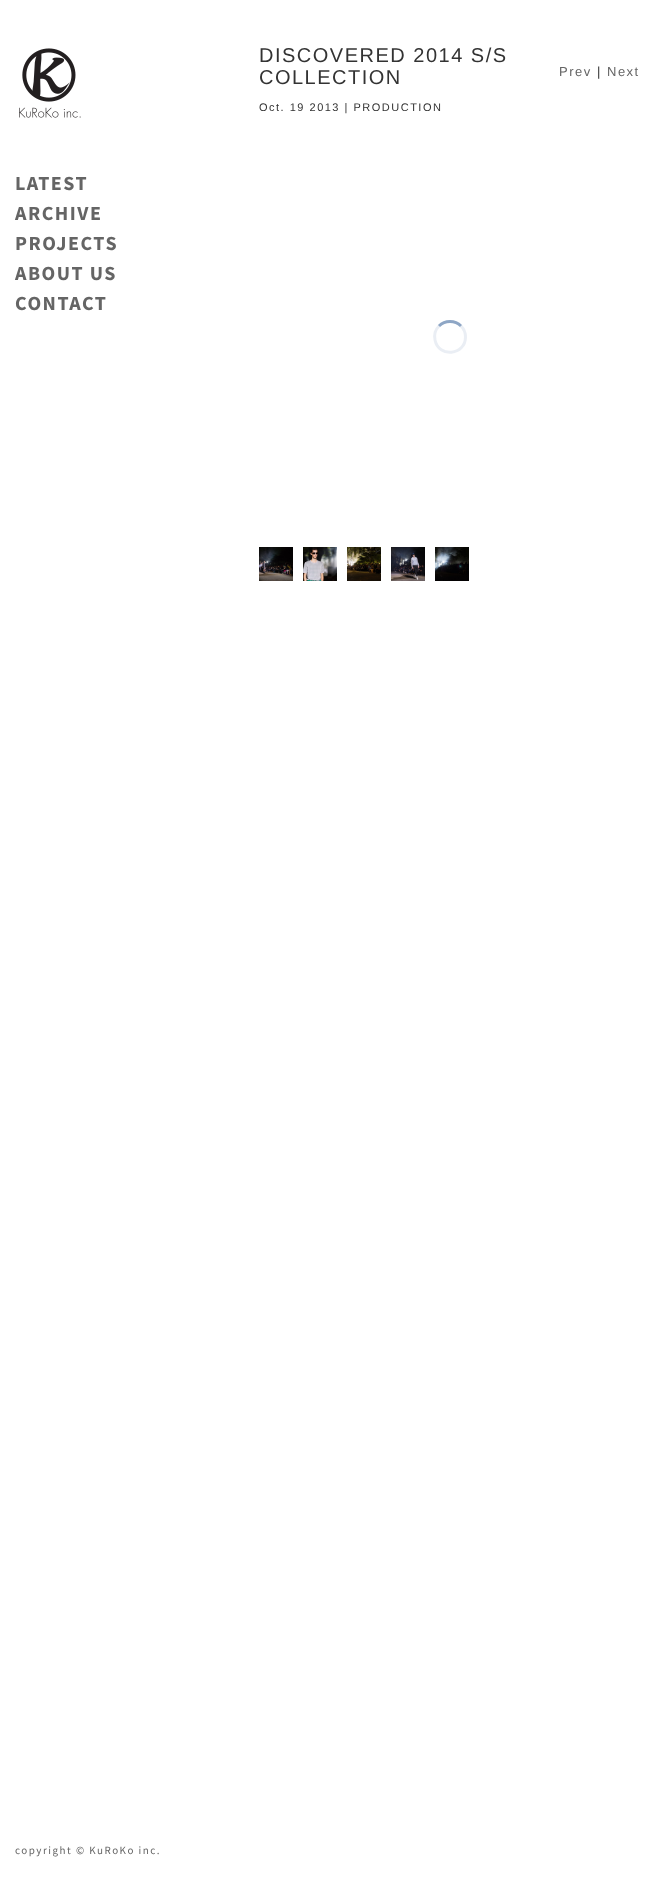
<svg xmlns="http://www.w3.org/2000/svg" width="655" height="1877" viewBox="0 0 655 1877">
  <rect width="100%" height="100%" fill="#ffffff"/>
  <text x="259" y="62" font-family="Liberation Sans" font-size="20" letter-spacing="1.5" fill="#333333">DISCOVERED 2014 S/S</text>
  <text x="259" y="84" font-family="Liberation Sans" font-size="20" letter-spacing="1.5" fill="#333333">COLLECTION</text>
  <text x="259" y="111" font-family="Liberation Sans" font-size="11" letter-spacing="1.5" fill="#333333">Oct. 19 2013 | PRODUCTION</text>
  <text x="559" y="76" font-family="Liberation Sans" font-size="13" letter-spacing="1.5" fill="#656565">Prev</text>
  <text x="597" y="76" font-family="Liberation Sans" font-size="13" letter-spacing="1.5" fill="#333333">|</text>
  <text x="607" y="76" font-family="Liberation Sans" font-size="13" letter-spacing="1.5" fill="#656565">Next</text>
  <path d="M439 326C445 320 455 320 461 326" fill="none" stroke="#8ea6c5" stroke-width="3"/>
  <path d="M461 326C464 329 465.5 333 465.5 337C465.5 355.5 438.5 358 435 340C434 335 435.5 329.5 439 326" fill="none" stroke="#7290b6" stroke-opacity="0.15" stroke-width="3"/>
  <image x="259" y="547" width="34" height="34" href="img1.png"/>
  <image x="303" y="547" width="34" height="34" href="img2.png"/>
  <image x="347" y="547" width="34" height="34" href="img3.png"/>
  <image x="391" y="547" width="34" height="34" href="img4.png"/>
  <image x="435" y="547" width="34" height="34" href="img5.png"/>
  <image x="19" y="48" width="62" height="70" href="img6.png"/>
  <text x="15" y="190" font-family="Source Sans Pro" font-size="20" font-weight="bold" letter-spacing="1.5" fill="#656565">LATEST</text>
  <text x="15" y="220" font-family="Source Sans Pro" font-size="20" font-weight="bold" letter-spacing="1.5" fill="#656565">ARCHIVE</text>
  <text x="15" y="250" font-family="Source Sans Pro" font-size="20" font-weight="bold" letter-spacing="1.5" fill="#656565">PROJECTS</text>
  <text x="15" y="280" font-family="Source Sans Pro" font-size="20" font-weight="bold" letter-spacing="1.5" fill="#656565">ABOUT US</text>
  <text x="15" y="310" font-family="Source Sans Pro" font-size="20" font-weight="bold" letter-spacing="1.5" fill="#656565">CONTACT</text>
  <text x="15" y="1854" font-family="Source Sans Pro" font-size="11" letter-spacing="1.5" fill="#656565">copyright © KuRoKo inc.</text>
</svg>
